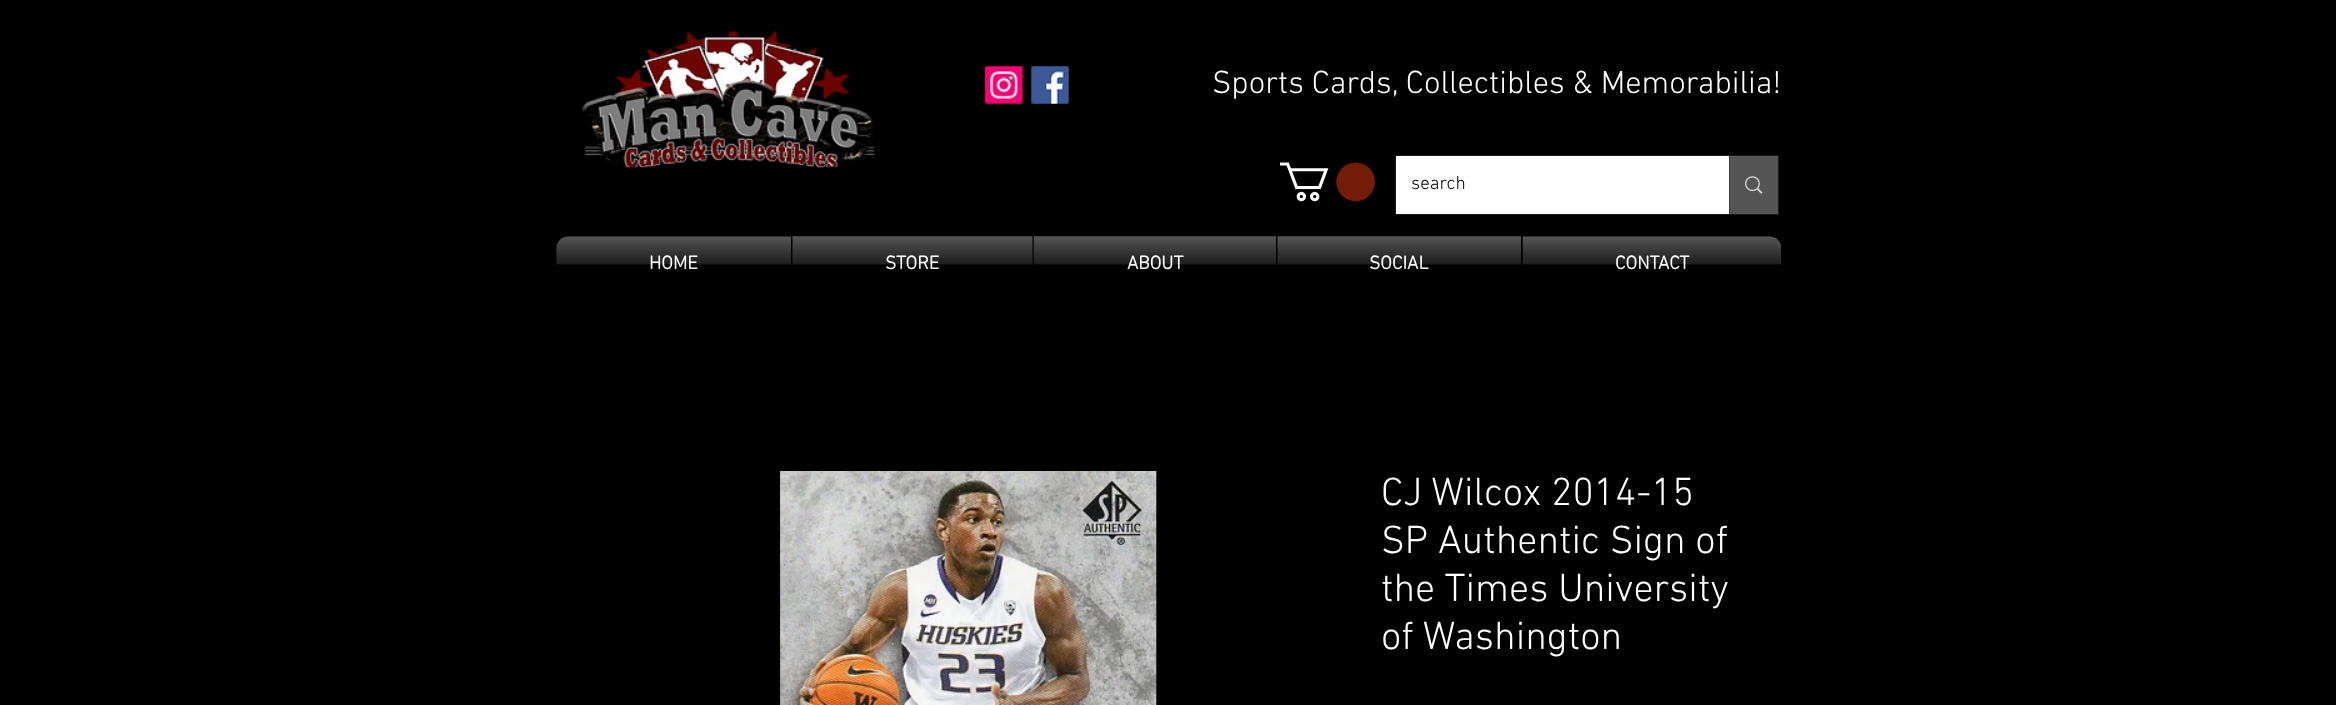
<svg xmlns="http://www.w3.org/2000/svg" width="2336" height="705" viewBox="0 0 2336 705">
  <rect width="100%" height="100%" fill="#000000"/>
  <image x="581" y="31" width="294" height="137" href="img1.png"/>
  <image x="985" y="66" width="38" height="38" href="img2.png"/>
  <image x="1031" y="66" width="38" height="38" href="img3.png"/>
  <text x="1212" y="93" font-family="'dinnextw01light'" font-size="32.5" font-weight="300" fill="#ffffff">Sports Cards, Collectibles &amp; Memorabilia!</text>
  <image x="1280" y="162" width="95" height="40" href="img4.png"/>
  <rect x="1395.5" y="155.5" width="383" height="59" fill="none" stroke="#191919"/>
  <rect x="1396" y="156" width="333" height="58" fill="#ffffff"/>
  <text x="1411" y="189" font-family="'dinnextw01light'" font-size="19" font-weight="300" fill="#000000">search</text>
  <rect x="1730" y="156" width="48" height="58" fill="#555555"/>
  <rect x="1729" y="156" width="1" height="58" fill="#3b3b3b"/>
  <image x="1745" y="176" width="18" height="18" href="img5.png"/>
  <image x="556" y="236" width="1225" height="13" href="img6.png"/>
  <path d="M569 236H791V293H556V249C556 242 562 236 569 236Z" fill="#000000"/>
  <text x="649" y="269" font-family="'dinnextw01light'" font-size="19" font-weight="bold" fill="#ffffff">HOME</text>
  <image x="556" y="236" width="235" height="33" href="img7.png"/>
  <rect x="791" y="236" width="730" height="13" fill="#000000"/>
  <text x="885" y="269" font-family="'dinnextw01light'" font-size="19" font-weight="bold" fill="#ffffff">STORE</text>
  <image x="792" y="236" width="241" height="33" href="img8.png"/>
  <text x="1127" y="269" font-family="'dinnextw01light'" font-size="19" font-weight="bold" fill="#ffffff">ABOUT</text>
  <image x="1033" y="236" width="243" height="33" href="img9.png"/>
  <text x="1369" y="269" font-family="'dinnextw01light'" font-size="19" font-weight="bold" fill="#ffffff">SOCIAL</text>
  <image x="1277" y="236" width="244" height="33" href="img10.png"/>
  <path d="M1521 236H1768C1775 236 1781 242 1781 249V293H1521Z" fill="#000000"/>
  <text x="1615" y="269" font-family="'dinnextw01light'" font-size="19" font-weight="bold" fill="#ffffff">CONTACT</text>
  <image x="1522" y="236" width="259" height="33" href="img11.png"/>
  <image x="779" y="471" width="378" height="234" href="img12.png"/>
  <text x="1381" y="505" font-family="'dinnextw01light'" font-size="40" font-weight="300" fill="#ffffff">CJ Wilcox 2014-15</text>
  <text x="1381" y="553" font-family="'dinnextw01light'" font-size="40" font-weight="300" fill="#ffffff">SP Authentic Sign of</text>
  <text x="1381" y="601" font-family="'dinnextw01light'" font-size="40" font-weight="300" fill="#ffffff">the Times University</text>
  <text x="1381" y="649" font-family="'dinnextw01light'" font-size="40" font-weight="300" fill="#ffffff">of Washington</text>
</svg>
